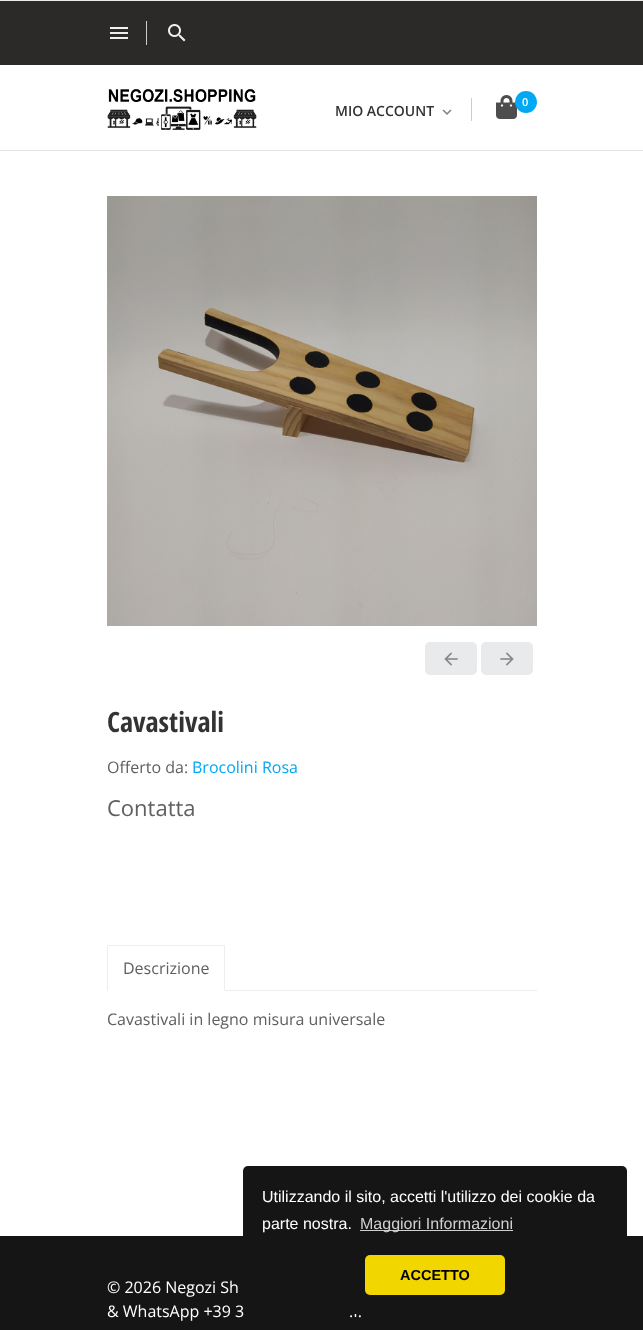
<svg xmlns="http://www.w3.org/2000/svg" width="643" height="1330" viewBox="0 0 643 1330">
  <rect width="100%" height="100%" fill="#ffffff"/>
  <rect x="0" y="0" width="643" height="1" fill="#ebebeb"/>
  <rect x="0" y="150" width="643" height="1" fill="#e5e5e5"/>
  <rect x="0" y="1" width="643" height="64" fill="#2b2a28"/>
  <rect x="146" y="21" width="1" height="24" fill="#cccccc"/>
  <image x="110" y="27" width="18" height="12" href="img1.png"/>
  <image x="168" y="24" width="18" height="18" href="img2.png"/>
  <image x="107" y="89" width="150" height="41" href="img3.png"/>
  <image x="496" y="95" width="21" height="24" href="img4.png"/>
  <circle cx="526" cy="102" r="11" fill="#02a8f3"/>
  <text x="522" y="106" font-family="Open Sans" font-size="11" font-weight="600" fill="#ffffff">0</text>
  <rect x="471" y="98" width="1" height="23" fill="#cccccc"/>
  <text x="335" y="116" font-family="Open Sans" font-size="14" font-weight="600" fill="#333333">MIO ACCOUNT</text>
  <image x="442" y="109" width="10" height="6" href="img5.png"/>
  <image x="107" y="196" width="430" height="430" href="img6.png"/>
  <rect x="425" y="642" width="52" height="33" rx="5" fill="#e9eaeb"/>
  <image x="444" y="652" width="14" height="14" href="img7.png"/>
  <rect x="481" y="642" width="52" height="33" rx="5" fill="#e9eaeb"/>
  <image x="500" y="652" width="14" height="14" href="img8.png"/>
  <text x="107" y="732" font-family="Open Sans Condensed" font-size="28" font-weight="bold" fill="#333333">Cavastivali</text>
  <text x="107" y="773" font-family="Open Sans" font-size="16" fill="#606060">Offerto da:</text>
  <text x="192" y="773" font-family="Open Sans" font-size="16" fill="#02a8f3">Brocolini Rosa</text>
  <text x="107" y="816" font-family="Open Sans" font-size="22" fill="#606060">Contatta</text>
  <rect x="225" y="990" width="312" height="1" fill="#eeeeee"/>
  <rect x="107" y="945" width="118" height="1" fill="#eeeeee"/>
  <path d="M225 945V991L224 990V946Z" fill="#eeeeee"/>
  <path d="M107 991V945L108 946V990Z" fill="#eeeeee"/>
  <text x="123" y="974" font-family="Open Sans" font-size="16" fill="#606060">Descrizione</text>
  <text x="107" y="1025" font-family="Open Sans" font-size="16" fill="#606060">Cavastivali in legno misura universale</text>
  <rect x="0" y="1236" width="643" height="94" fill="#151515"/>
  <text x="107" y="1293" font-family="Open Sans" font-size="16" fill="#ffffff">© 2026 Negozi Sh</text>
  <text x="107" y="1317" font-family="Open Sans" font-size="16" fill="#ffffff">&amp; WhatsApp +39 3</text>
  <text x="349" y="1317" font-family="Open Sans" font-size="16" fill="#ffffff">.I.</text>
  <rect x="243" y="1166" width="384" height="148" rx="5" fill="#151515"/>
  <text x="262" y="1202" font-family="Liberation Sans" font-size="16" fill="#ffffff">Utilizzando il sito, accetti l'utilizzo dei cookie da</text>
  <text x="262" y="1229" font-family="Liberation Sans" font-size="16" fill="#ffffff">parte nostra.</text>
  <rect x="360" y="1230" width="153" height="1" fill="#d0d0d0"/>
  <text x="360" y="1229" font-family="Liberation Sans" font-size="16" fill="#d0d0d0">Maggiori Informazioni</text>
  <rect x="365" y="1255" width="140" height="40" rx="5" fill="#f1d600"/>
  <text x="400" y="1280" font-family="Liberation Sans" font-size="14.5" font-weight="bold" fill="#000000">ACCETTO</text>
</svg>
